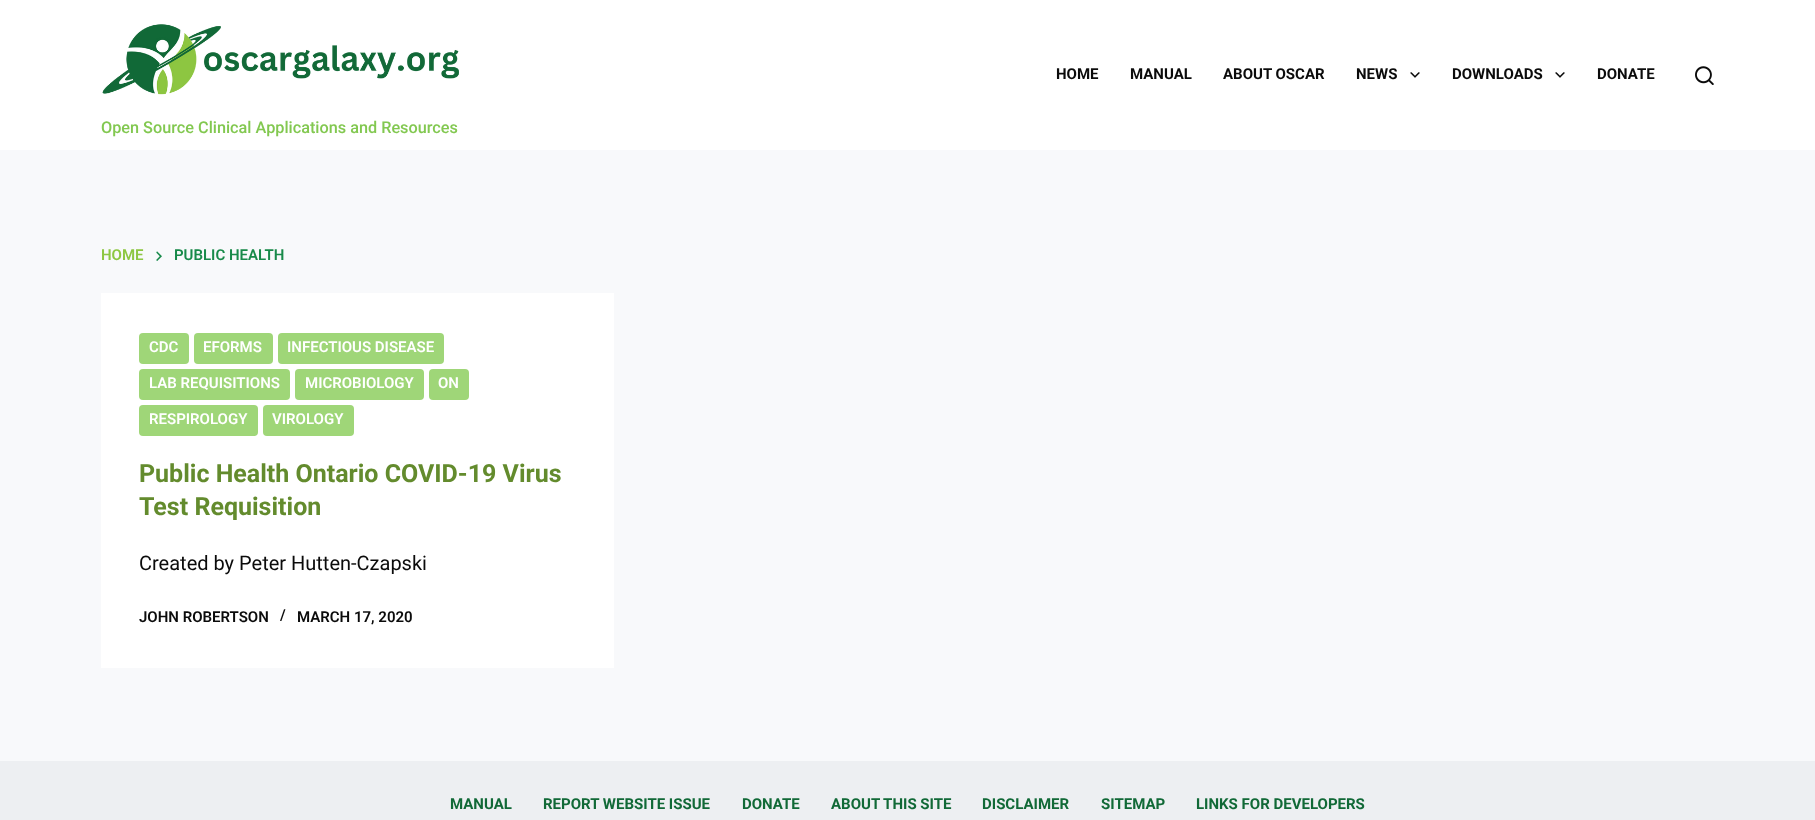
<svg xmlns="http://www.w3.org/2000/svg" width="1815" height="820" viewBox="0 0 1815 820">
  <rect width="100%" height="100%" fill="#f8f9fb"/>
  <rect x="0" y="0" width="1815" height="150" fill="#ffffff"/>
  <text x="1056" y="79" font-family="Roboto" font-size="15" font-weight="bold" fill="#0b0b0b">HOME</text>
  <text x="1130" y="79" font-family="Roboto" font-size="15" font-weight="bold" fill="#0b0b0b">MANUAL</text>
  <text x="1223" y="79" font-family="Roboto" font-size="15" font-weight="bold" fill="#0b0b0b">ABOUT OSCAR</text>
  <text x="1356" y="79" font-family="Roboto" font-size="15" font-weight="bold" fill="#0b0b0b">NEWS</text>
  <image x="1410" y="72" width="10" height="6" href="img1.png"/>
  <text x="1452" y="79" font-family="Roboto" font-size="15" font-weight="bold" fill="#0b0b0b">DOWNLOADS</text>
  <image x="1555" y="72" width="10" height="6" href="img1.png"/>
  <text x="1597" y="79" font-family="Roboto" font-size="15" font-weight="bold" fill="#0b0b0b">DONATE</text>
  <image x="1695" y="66" width="19" height="19" href="img2.png"/>
  <image x="102" y="24" width="357" height="71" href="img3.png"/>
  <text x="101" y="133" font-family="Roboto" font-size="16.25" font-weight="500" fill="#82c850">Open Source Clinical Applications and Resources</text>
  <text x="101" y="260" font-family="Roboto" font-size="15" font-weight="600" fill="#8dc742">HOME</text>
  <image x="156" y="251" width="6" height="10" href="img4.png"/>
  <text x="174" y="260" font-family="Roboto" font-size="15" font-weight="600" fill="#188a4a">PUBLIC HEALTH</text>
  <rect x="101" y="293" width="513" height="375" fill="#ffffff"/>
  <rect x="139" y="333" width="50" height="31" rx="4" fill="#9fd678"/>
  <text x="149" y="352" font-family="Roboto" font-size="15" font-weight="600" fill="#ffffff">CDC</text>
  <rect x="194" y="333" width="79" height="31" rx="4" fill="#9fd678"/>
  <text x="203" y="352" font-family="Roboto" font-size="15" font-weight="600" fill="#ffffff">EFORMS</text>
  <rect x="278" y="333" width="166" height="31" rx="4" fill="#9fd678"/>
  <text x="287" y="352" font-family="Roboto" font-size="15" font-weight="600" fill="#ffffff">INFECTIOUS DISEASE</text>
  <rect x="139" y="369" width="151" height="31" rx="4" fill="#9fd678"/>
  <text x="149" y="388" font-family="Roboto" font-size="15" font-weight="600" fill="#ffffff">LAB REQUISITIONS</text>
  <rect x="295" y="369" width="129" height="31" rx="4" fill="#9fd678"/>
  <text x="305" y="388" font-family="Roboto" font-size="15" font-weight="600" fill="#ffffff">MICROBIOLOGY</text>
  <rect x="429" y="369" width="40" height="31" rx="4" fill="#9fd678"/>
  <text x="438" y="388" font-family="Roboto" font-size="15" font-weight="600" fill="#ffffff">ON</text>
  <rect x="139" y="405" width="119" height="31" rx="4" fill="#9fd678"/>
  <text x="149" y="424" font-family="Roboto" font-size="15" font-weight="600" fill="#ffffff">RESPIROLOGY</text>
  <rect x="263" y="405" width="91" height="31" rx="4" fill="#9fd678"/>
  <text x="272" y="424" font-family="Roboto" font-size="15" font-weight="600" fill="#ffffff">VIROLOGY</text>
  <text x="139" y="482" font-family="Roboto" font-size="25" font-weight="bold" fill="#638b2d">Public Health Ontario COVID-19 Virus</text>
  <text x="139" y="515" font-family="Roboto" font-size="25" font-weight="bold" fill="#638b2d">Test Requisition</text>
  <text x="139" y="570" font-family="Roboto" font-size="20" fill="#0b0b0b">Created by Peter Hutten-Czapski</text>
  <text x="139" y="622" font-family="Roboto" font-size="15" font-weight="600" fill="#0b0b0b">JOHN ROBERTSON</text>
  <text x="280" y="620" font-family="Roboto" font-size="15" font-weight="600" fill="#0b0b0b">/</text>
  <text x="297" y="622" font-family="Roboto" font-size="15" font-weight="600" fill="#0b0b0b">MARCH 17, 2020</text>
  <rect x="0" y="761" width="1815" height="59" fill="#edeff2"/>
  <text x="450" y="809" font-family="Roboto" font-size="15" font-weight="bold" fill="#116937">MANUAL</text>
  <text x="543" y="809" font-family="Roboto" font-size="15" font-weight="bold" fill="#116937">REPORT WEBSITE ISSUE</text>
  <text x="742" y="809" font-family="Roboto" font-size="15" font-weight="bold" fill="#116937">DONATE</text>
  <text x="831" y="809" font-family="Roboto" font-size="15" font-weight="bold" fill="#116937">ABOUT THIS SITE</text>
  <text x="982" y="809" font-family="Roboto" font-size="15" font-weight="bold" fill="#116937">DISCLAIMER</text>
  <text x="1101" y="809" font-family="Roboto" font-size="15" font-weight="bold" fill="#116937">SITEMAP</text>
  <text x="1196" y="809" font-family="Roboto" font-size="15" font-weight="bold" fill="#116937">LINKS FOR DEVELOPERS</text>
</svg>
